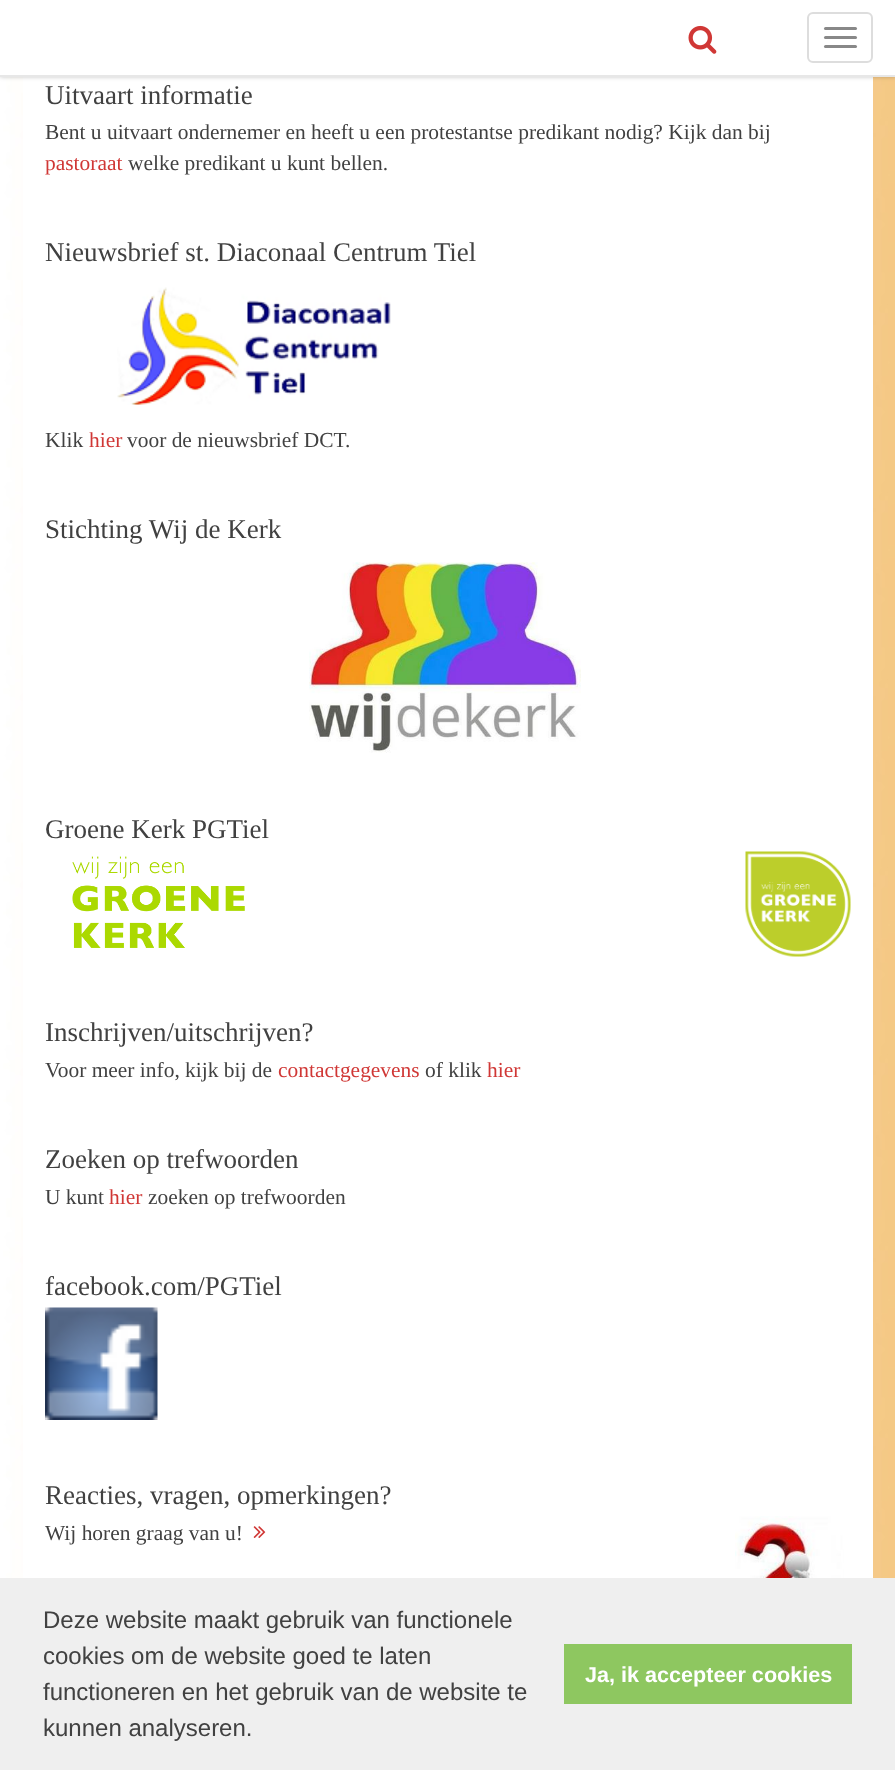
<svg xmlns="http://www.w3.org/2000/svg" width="895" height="1770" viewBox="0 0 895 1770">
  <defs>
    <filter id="blur1" x="-50%" y="-200%" width="200%" height="500%"><feGaussianBlur stdDeviation="2"/></filter>
  </defs>
  <rect width="100%" height="100%" fill="#ffffff"/>
  <image x="0" y="77" width="895" height="1501" href="img1.png"/>
  <rect x="23" y="77" width="850" height="1501" fill="#ffffff"/>
  <rect x="0" y="0" width="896" height="77" fill="#000000" fill-opacity="0.22" filter="url(#blur1)"/>
  <rect x="0" y="0" width="895" height="75" fill="#ffffff"/>
  <rect x="0" y="75" width="895" height="2" fill="#e7e7e7"/>
  <image x="688" y="25" width="29" height="29" href="img2.png"/>
  <rect x="808" y="13" width="64" height="49" rx="5" fill="none" stroke="#dddddd" stroke-width="2"/>
  <rect x="824" y="27" width="33" height="3" rx="1.5" fill="#888888"/>
  <rect x="824" y="36" width="33" height="3" rx="1.5" fill="#888888"/>
  <rect x="824" y="45" width="33" height="3" rx="1.5" fill="#888888"/>
  <text x="45" y="104" font-family="Liberation Serif" font-size="27" fill="#414141">Uitvaart informatie</text>
  <text x="45" y="139" font-family="Liberation Serif" font-size="21.45" fill="#414141">Bent u uitvaart ondernemer en heeft u een protestantse predikant nodig? Kijk dan bij</text>
  <text x="45" y="170" font-family="Liberation Serif" font-size="21.45" fill="#d03735">pastoraat</text>
  <text x="128" y="170" font-family="Liberation Serif" font-size="21.45" fill="#414141">welke predikant u kunt bellen.</text>
  <text x="45" y="261" font-family="Liberation Serif" font-size="27" fill="#414141">Nieuwsbrief st. Diaconaal Centrum Tiel</text>
  <image x="117" y="287" width="274" height="118" href="img3.png"/>
  <text x="45" y="447" font-family="Liberation Serif" font-size="21.45" fill="#414141">Klik</text>
  <text x="89" y="447" font-family="Liberation Serif" font-size="21.45" fill="#d03735">hier</text>
  <text x="127" y="447" font-family="Liberation Serif" font-size="21.45" fill="#414141">voor de nieuwsbrief DCT.</text>
  <text x="45" y="538" font-family="Liberation Serif" font-size="27" fill="#414141">Stichting Wij de Kerk</text>
  <image x="309" y="562" width="272" height="191" href="img4.png"/>
  <text x="45" y="838" font-family="Liberation Serif" font-size="27" fill="#414141">Groene Kerk PGTiel</text>
  <image x="72" y="856" width="173" height="92" href="img5.png"/>
  <image x="745" y="851" width="106" height="106" href="img6.png"/>
  <text x="45" y="1041" font-family="Liberation Serif" font-size="27" fill="#414141">Inschrijven/uitschrijven?</text>
  <text x="45" y="1077" font-family="Liberation Serif" font-size="21.45" fill="#414141">Voor meer info, kijk bij de</text>
  <text x="278" y="1077" font-family="Liberation Serif" font-size="21.45" fill="#d03735">contactgegevens</text>
  <text x="425" y="1077" font-family="Liberation Serif" font-size="21.45" fill="#414141">of klik</text>
  <text x="487" y="1077" font-family="Liberation Serif" font-size="21.45" fill="#d03735">hier</text>
  <text x="45" y="1168" font-family="Liberation Serif" font-size="27" fill="#414141">Zoeken op trefwoorden</text>
  <text x="45" y="1204" font-family="Liberation Serif" font-size="21.45" fill="#414141">U kunt</text>
  <text x="109" y="1204" font-family="Liberation Serif" font-size="21.45" fill="#d03735">hier</text>
  <text x="148" y="1204" font-family="Liberation Serif" font-size="21.45" fill="#414141">zoeken op trefwoorden</text>
  <text x="45" y="1295" font-family="Liberation Serif" font-size="27" fill="#414141">facebook.com/PGTiel</text>
  <image x="45" y="1307" width="113" height="113" href="img7.png"/>
  <text x="45" y="1504" font-family="Liberation Serif" font-size="27" fill="#414141">Reacties, vragen, opmerkingen?</text>
  <text x="45" y="1540" font-family="Liberation Serif" font-size="21.45" fill="#414141">Wij horen graag van u!</text>
  <image x="253" y="1526" width="13" height="12" href="img8.png"/>
  <image x="735" y="1516" width="109" height="62" href="img9.png"/>
  <rect x="0" y="1578" width="895" height="192" fill="#efefef"/>
  <text x="43" y="1628" font-family="Liberation Sans" font-size="24" fill="#414141">Deze website maakt gebruik van functionele</text>
  <text x="43" y="1664" font-family="Liberation Sans" font-size="24" fill="#414141">cookies om de website goed te laten</text>
  <text x="43" y="1700" font-family="Liberation Sans" font-size="24" fill="#414141">functioneren en het gebruik van de website te</text>
  <text x="43" y="1736" font-family="Liberation Sans" font-size="24" fill="#414141">kunnen analyseren.</text>
  <rect x="564" y="1644" width="288" height="60" fill="#8ec760"/>
  <text x="585" y="1682" font-family="Liberation Sans" font-size="21.6" font-weight="bold" fill="#ffffff">Ja, ik accepteer cookies</text>
</svg>
